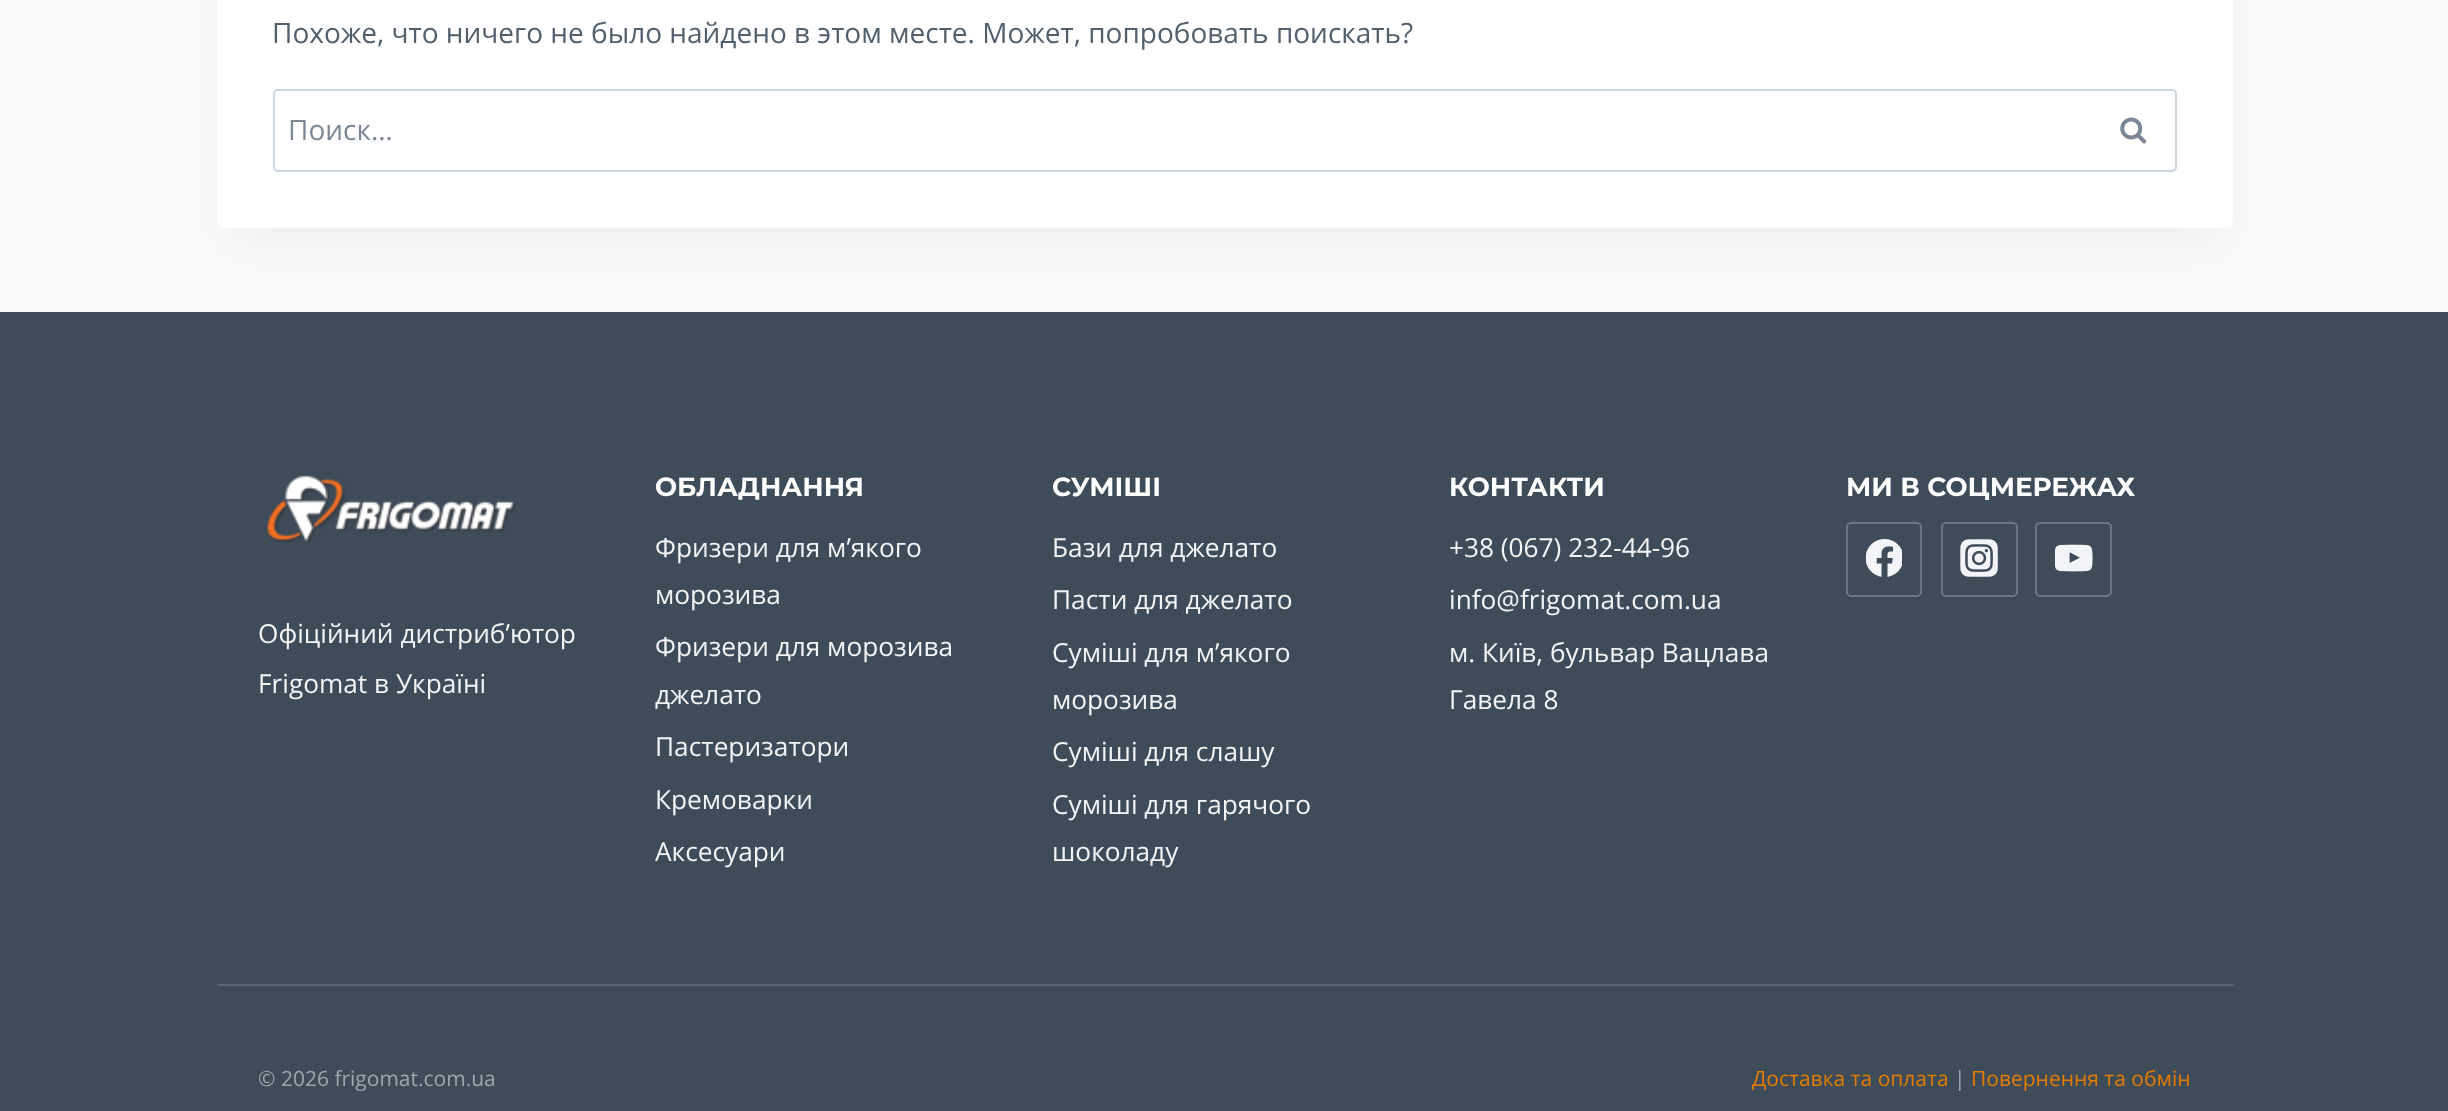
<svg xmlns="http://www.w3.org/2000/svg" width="2448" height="1111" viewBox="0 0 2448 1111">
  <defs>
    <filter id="blur1" x="-50%" y="-200%" width="200%" height="500%"><feGaussianBlur stdDeviation="22"/></filter>
  </defs>
  <rect width="100%" height="100%" fill="#f9f9fb"/>
  <rect x="235" y="-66" width="1981" height="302" fill="#000000" fill-opacity="0.05" filter="url(#blur1)"/>
  <rect x="217" y="-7" width="2016" height="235" rx="7" fill="#ffffff"/>
  <text x="272" y="43" font-family="Open Sans" font-size="28" fill="#52606d">Похоже, что ничего не было найдено в этом месте. Может, попробовать поискать?</text>
  <rect x="274" y="90" width="1902" height="81" rx="4" fill="none" stroke="#cbd5e0" stroke-width="2"/>
  <text x="288" y="140" font-family="Open Sans" font-size="28" fill="#7b8794">Поиск…</text>
  <image x="2120" y="117" width="27" height="27" href="img1.png"/>
  <rect x="0" y="312" width="2448" height="799" fill="#3e4c59"/>
  <text x="655" y="496" font-family="Montserrat" font-size="26.25" font-weight="bold" fill="#ffffff">ОБЛАДНАННЯ</text>
  <text x="655" y="557" font-family="Open Sans" font-size="26.25" fill="#f3f4f7">Фризери для м’якого</text>
  <text x="655" y="604" font-family="Open Sans" font-size="26.25" fill="#f3f4f7">морозива</text>
  <text x="655" y="656" font-family="Open Sans" font-size="26.25" fill="#f3f4f7">Фризери для морозива</text>
  <text x="655" y="704" font-family="Open Sans" font-size="26.25" fill="#f3f4f7">джелато</text>
  <text x="655" y="756" font-family="Open Sans" font-size="26.25" fill="#f3f4f7">Пастеризатори</text>
  <text x="655" y="809" font-family="Open Sans" font-size="26.25" fill="#f3f4f7">Кремоварки</text>
  <text x="655" y="861" font-family="Open Sans" font-size="26.25" fill="#f3f4f7">Аксесуари</text>
  <text x="1052" y="496" font-family="Montserrat" font-size="26.25" font-weight="bold" fill="#ffffff">СУМІШІ</text>
  <text x="1052" y="557" font-family="Open Sans" font-size="26.25" fill="#f3f4f7">Бази для джелато</text>
  <text x="1052" y="609" font-family="Open Sans" font-size="26.25" fill="#f3f4f7">Пасти для джелато</text>
  <text x="1052" y="662" font-family="Open Sans" font-size="26.25" fill="#f3f4f7">Суміші для м’якого</text>
  <text x="1052" y="709" font-family="Open Sans" font-size="26.25" fill="#f3f4f7">морозива</text>
  <text x="1052" y="761" font-family="Open Sans" font-size="26.25" fill="#f3f4f7">Суміші для слашу</text>
  <text x="1052" y="814" font-family="Open Sans" font-size="26.25" fill="#f3f4f7">Суміші для гарячого</text>
  <text x="1052" y="861" font-family="Open Sans" font-size="26.25" fill="#f3f4f7">шоколаду</text>
  <text x="1449" y="496" font-family="Montserrat" font-size="26.25" font-weight="bold" fill="#ffffff">КОНТАКТИ</text>
  <text x="1449" y="557" font-family="Open Sans" font-size="26.25" fill="#f3f4f7">+38 (067) 232-44-96</text>
  <text x="1449" y="609" font-family="Open Sans" font-size="26.25" fill="#f3f4f7">info@frigomat.com.ua</text>
  <text x="1449" y="662" font-family="Open Sans" font-size="26.25" fill="#f3f4f7">м. Київ, бульвар Вацлава</text>
  <text x="1449" y="709" font-family="Open Sans" font-size="26.25" fill="#f3f4f7">Гавела 8</text>
  <text x="1846" y="496" font-family="Montserrat" font-size="26.25" font-weight="bold" fill="#ffffff">МИ В СОЦМЕРЕЖАХ</text>
  <rect x="1847" y="523" width="74" height="73" rx="4" fill="none" stroke="#6a7681" stroke-width="2"/>
  <image x="1866" y="539" width="36" height="38" href="img2.png"/>
  <rect x="1942" y="523" width="75" height="73" rx="4" fill="none" stroke="#6a7681" stroke-width="2"/>
  <image x="1960" y="539" width="38" height="38" href="img3.png"/>
  <rect x="2036" y="523" width="75" height="73" rx="4" fill="none" stroke="#6a7681" stroke-width="2"/>
  <image x="2055" y="544" width="38" height="28" href="img4.png"/>
  <image x="267" y="475" width="249" height="68" href="img5.png"/>
  <text x="258" y="643" font-family="Open Sans" font-size="26.25" fill="#f3f4f7">Офіційний дистриб’ютор</text>
  <text x="258" y="693" font-family="Open Sans" font-size="26.25" fill="#f3f4f7">Frigomat в Україні</text>
  <rect x="217" y="984" width="2016" height="2" fill="#586571"/>
  <text x="258" y="1086" font-family="Open Sans" font-size="21" fill="#9fa6ac">© 2026 frigomat.com.ua</text>
  <text x="1752" y="1086" font-family="Open Sans" font-size="21" fill="#e47b02">Доставка та оплата</text>
  <text x="1954" y="1086" font-family="Open Sans" font-size="21" fill="#9fa6ac">|</text>
  <text x="1971" y="1086" font-family="Open Sans" font-size="21" fill="#e47b02">Повернення та обмін</text>
</svg>
